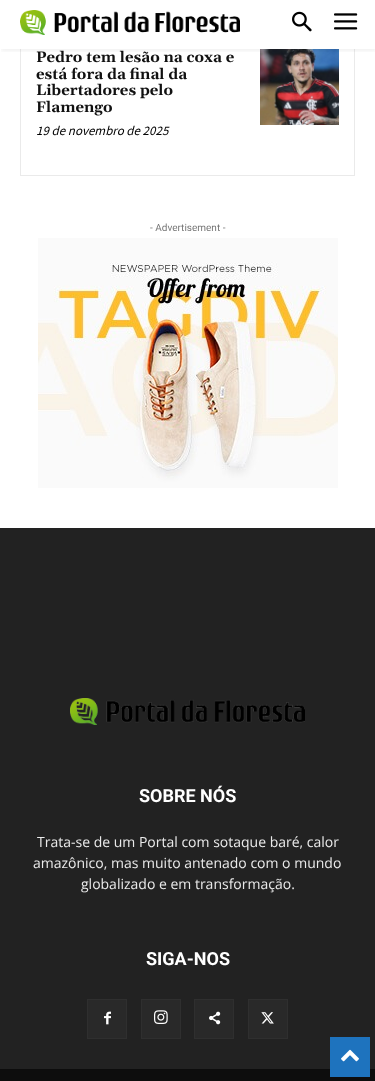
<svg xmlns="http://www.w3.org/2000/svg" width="375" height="1081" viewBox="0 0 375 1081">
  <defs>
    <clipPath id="clip1"><rect x="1" y="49" width="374" height="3"/></clipPath>
    <filter id="blur1" x="-50%" y="-200%" width="200%" height="500%"><feGaussianBlur stdDeviation="2"/></filter>
  </defs>
  <rect width="100%" height="100%" fill="#ffffff"/>
  <rect x="20.5" y="-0.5" width="334" height="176" fill="none" stroke="#eaeaea"/>
  <rect x="20" y="0" width="335" height="49" fill="#ffffff"/>
  <image x="20" y="10" width="220" height="25" href="img1.png"/>
  <image x="292" y="11" width="20" height="21" href="img2.png"/>
  <image x="334" y="13" width="24" height="17" href="img3.png"/>
  <image x="260" y="49" width="79" height="76" href="img4.png"/>
  <g clip-path="url(#clip1)">
    <rect x="1" y="2" width="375" height="49" fill="#000000" fill-opacity="0.06" filter="url(#blur1)"/>
  </g>
  <text x="36" y="62" font-family="Gelasio" font-size="15" font-weight="bold" fill="#111111">Pedro tem lesão na coxa e</text>
  <text x="36" y="79" font-family="Gelasio" font-size="15" font-weight="bold" fill="#111111">está fora da final da</text>
  <text x="36" y="95" font-family="Gelasio" font-size="15" font-weight="bold" fill="#111111">Libertadores pelo</text>
  <text x="36" y="112" font-family="Gelasio" font-size="15" font-weight="bold" fill="#111111">Flamengo</text>
  <text x="36" y="135" font-family="Source Sans Pro" font-size="13" font-style="italic" fill="#000000">19 de novembro de 2025</text>
  <text x="150" y="231" font-family="Roboto" font-size="10" fill="#767676">- Advertisement -</text>
  <image x="38" y="238" width="300" height="250" href="img5.png"/>
  <rect x="0" y="528" width="375" height="541" fill="#222222"/>
  <image x="70" y="698" width="235" height="27" href="img6.png"/>
  <text x="139" y="802" font-family="Roboto" font-size="18" font-weight="bold" fill="#ffffff">SOBRE NÓS</text>
  <text x="37" y="847" font-family="Open Sans" font-size="14" fill="#eaeaea">Trata-se de um Portal com sotaque baré, calor</text>
  <text x="33" y="868" font-family="Open Sans" font-size="14" fill="#eaeaea">amazônico, mas muito antenado com o mundo</text>
  <text x="81" y="889" font-family="Open Sans" font-size="14" fill="#eaeaea">globalizado e em transformação.</text>
  <text x="146" y="965" font-family="Roboto" font-size="18" font-weight="bold" fill="#ffffff">SIGA-NOS</text>
  <rect x="88" y="1000" width="38" height="38" fill="#292929"/>
  <image x="104" y="1011" width="7" height="14" href="img7.png"/>
  <rect x="87.5" y="999.5" width="39" height="39" fill="none" stroke="#2f2f2f"/>
  <rect x="142" y="1000" width="38" height="38" fill="#292929"/>
  <image x="154" y="1010" width="14" height="14" href="img8.png"/>
  <rect x="141.5" y="999.5" width="39" height="39" fill="none" stroke="#2f2f2f"/>
  <rect x="195" y="1000" width="38" height="38" fill="#292929"/>
  <image x="209" y="1011" width="12" height="14" href="img9.png"/>
  <rect x="194.5" y="999.5" width="39" height="39" fill="none" stroke="#2f2f2f"/>
  <rect x="249" y="1000" width="38" height="38" fill="#292929"/>
  <image x="261" y="1012" width="13" height="12" href="img10.png"/>
  <rect x="248.5" y="999.5" width="39" height="39" fill="none" stroke="#2f2f2f"/>
  <rect x="0" y="1069" width="375" height="12" fill="#0d0d0d"/>
  <rect x="330" y="1037" width="40" height="40" fill="#1e73be"/>
  <image x="341" y="1049" width="18" height="13" href="img11.png"/>
</svg>
